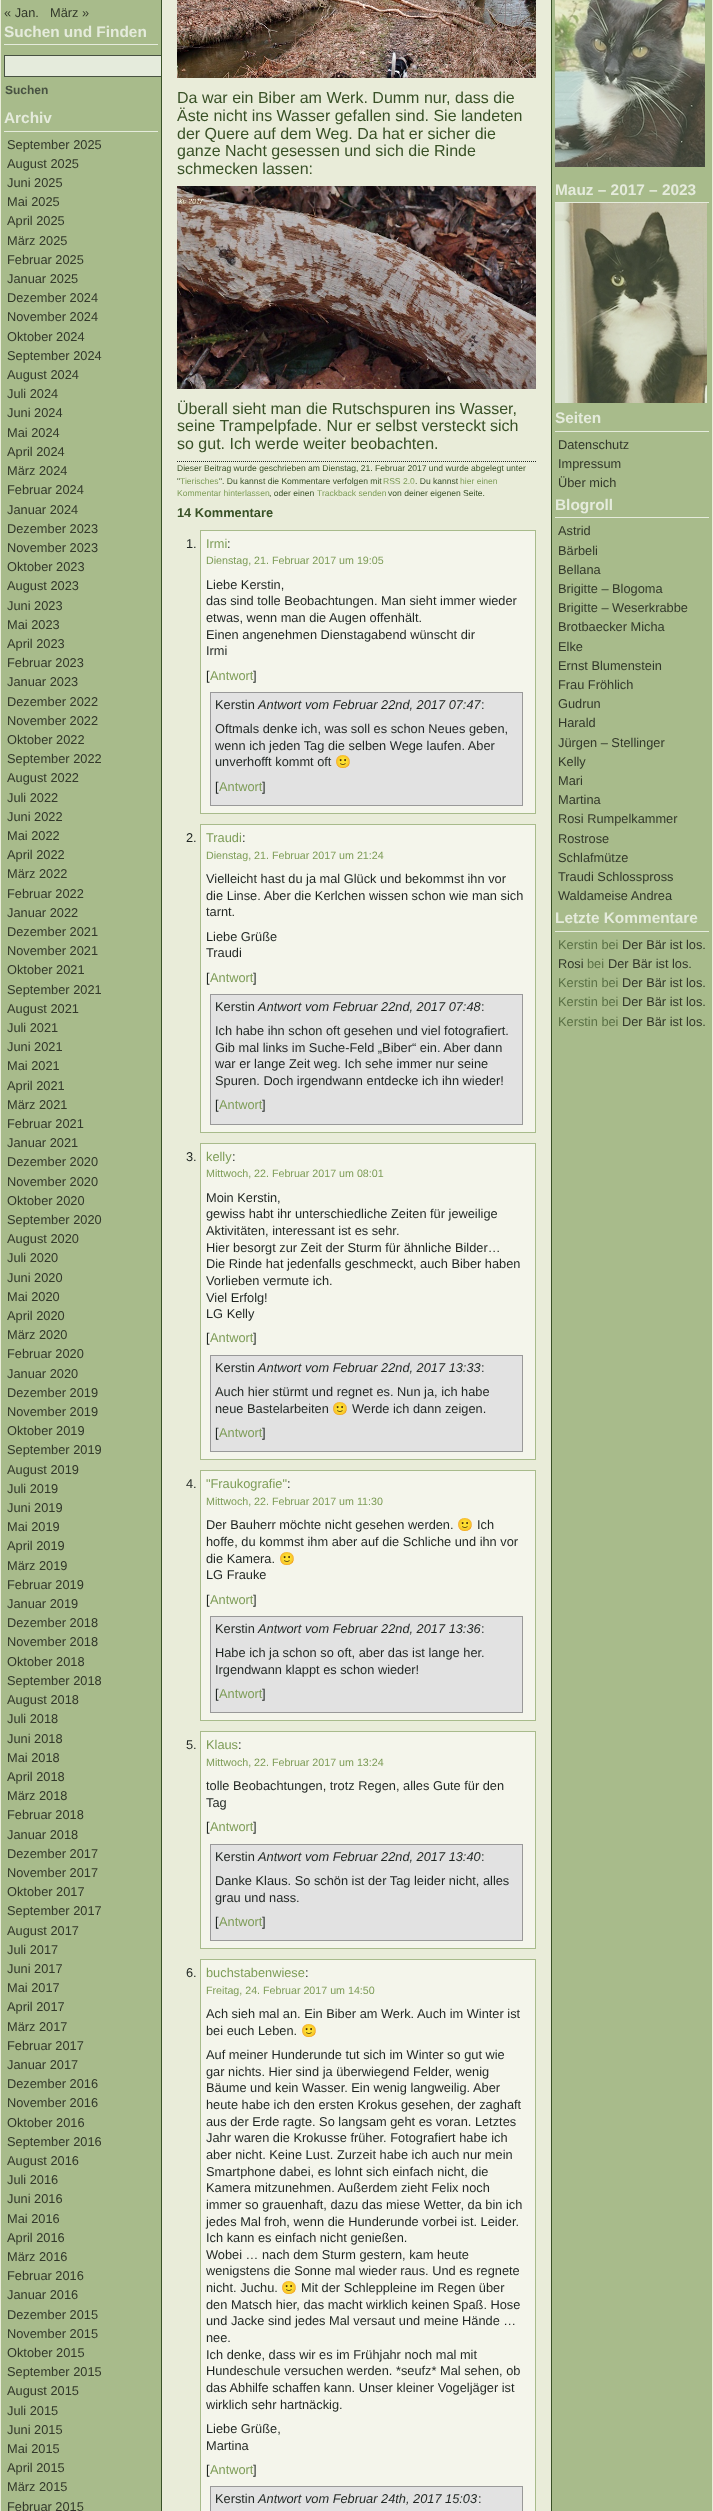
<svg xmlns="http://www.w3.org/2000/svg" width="713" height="2511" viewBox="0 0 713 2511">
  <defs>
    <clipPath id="clip1"><rect x="1" y="0" width="160" height="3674"/></clipPath>
  </defs>
  <rect width="100%" height="100%" fill="#a8bb8b"/>
  <rect x="0.5" y="-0.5" width="712" height="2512" fill="none" stroke="#e9ecd9"/>
  <text x="4" y="17" font-family="Liberation Sans" font-size="12.8" fill="#32382a">« Jan.</text>
  <text x="50" y="17" font-family="Liberation Sans" font-size="12.8" fill="#32382a">März »</text>
  <rect x="4" y="44" width="154" height="1" fill="#e5ebdc"/>
  <text x="4" y="37" font-family="Liberation Sans" font-size="15.4" font-weight="bold" fill="#e5ebdc">Suchen und Finden</text>
  <rect x="5" y="56" width="156" height="20" fill="#e5ebdc"/>
  <rect x="161.5" y="-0.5" width="390" height="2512" fill="#e9ecd9" stroke="#395127"/>
  <g clip-path="url(#clip1)">
    <rect x="4.5" y="55.5" width="170" height="21" fill="none" stroke="#485242"/>
  </g>
  <text x="5" y="94" font-family="Liberation Sans" font-size="12" font-weight="bold" fill="#485242">Suchen</text>
  <rect x="4" y="131" width="154" height="1" fill="#e5ebdc"/>
  <text x="4" y="123" font-family="Liberation Sans" font-size="15.4" font-weight="bold" fill="#e5ebdc">Archiv</text>
  <text x="7" y="149" font-family="Liberation Sans" font-size="12.8" fill="#32382a">September 2025</text>
  <text x="7" y="168" font-family="Liberation Sans" font-size="12.8" fill="#32382a">August 2025</text>
  <text x="7" y="187" font-family="Liberation Sans" font-size="12.8" fill="#32382a">Juni 2025</text>
  <text x="7" y="206" font-family="Liberation Sans" font-size="12.8" fill="#32382a">Mai 2025</text>
  <text x="7" y="225" font-family="Liberation Sans" font-size="12.8" fill="#32382a">April 2025</text>
  <text x="7" y="245" font-family="Liberation Sans" font-size="12.8" fill="#32382a">März 2025</text>
  <text x="7" y="264" font-family="Liberation Sans" font-size="12.8" fill="#32382a">Februar 2025</text>
  <text x="7" y="283" font-family="Liberation Sans" font-size="12.8" fill="#32382a">Januar 2025</text>
  <text x="7" y="302" font-family="Liberation Sans" font-size="12.8" fill="#32382a">Dezember 2024</text>
  <text x="7" y="321" font-family="Liberation Sans" font-size="12.8" fill="#32382a">November 2024</text>
  <text x="7" y="341" font-family="Liberation Sans" font-size="12.8" fill="#32382a">Oktober 2024</text>
  <text x="7" y="360" font-family="Liberation Sans" font-size="12.8" fill="#32382a">September 2024</text>
  <text x="7" y="379" font-family="Liberation Sans" font-size="12.8" fill="#32382a">August 2024</text>
  <text x="7" y="398" font-family="Liberation Sans" font-size="12.8" fill="#32382a">Juli 2024</text>
  <text x="7" y="417" font-family="Liberation Sans" font-size="12.8" fill="#32382a">Juni 2024</text>
  <text x="7" y="437" font-family="Liberation Sans" font-size="12.8" fill="#32382a">Mai 2024</text>
  <text x="7" y="456" font-family="Liberation Sans" font-size="12.8" fill="#32382a">April 2024</text>
  <text x="7" y="475" font-family="Liberation Sans" font-size="12.8" fill="#32382a">März 2024</text>
  <text x="7" y="494" font-family="Liberation Sans" font-size="12.8" fill="#32382a">Februar 2024</text>
  <text x="7" y="514" font-family="Liberation Sans" font-size="12.8" fill="#32382a">Januar 2024</text>
  <text x="7" y="533" font-family="Liberation Sans" font-size="12.8" fill="#32382a">Dezember 2023</text>
  <text x="7" y="552" font-family="Liberation Sans" font-size="12.8" fill="#32382a">November 2023</text>
  <text x="7" y="571" font-family="Liberation Sans" font-size="12.8" fill="#32382a">Oktober 2023</text>
  <text x="7" y="590" font-family="Liberation Sans" font-size="12.8" fill="#32382a">August 2023</text>
  <text x="7" y="610" font-family="Liberation Sans" font-size="12.8" fill="#32382a">Juni 2023</text>
  <text x="7" y="629" font-family="Liberation Sans" font-size="12.8" fill="#32382a">Mai 2023</text>
  <text x="7" y="648" font-family="Liberation Sans" font-size="12.8" fill="#32382a">April 2023</text>
  <text x="7" y="667" font-family="Liberation Sans" font-size="12.8" fill="#32382a">Februar 2023</text>
  <text x="7" y="686" font-family="Liberation Sans" font-size="12.8" fill="#32382a">Januar 2023</text>
  <text x="7" y="706" font-family="Liberation Sans" font-size="12.8" fill="#32382a">Dezember 2022</text>
  <text x="7" y="725" font-family="Liberation Sans" font-size="12.8" fill="#32382a">November 2022</text>
  <text x="7" y="744" font-family="Liberation Sans" font-size="12.8" fill="#32382a">Oktober 2022</text>
  <text x="7" y="763" font-family="Liberation Sans" font-size="12.8" fill="#32382a">September 2022</text>
  <text x="7" y="782" font-family="Liberation Sans" font-size="12.8" fill="#32382a">August 2022</text>
  <text x="7" y="802" font-family="Liberation Sans" font-size="12.8" fill="#32382a">Juli 2022</text>
  <text x="7" y="821" font-family="Liberation Sans" font-size="12.8" fill="#32382a">Juni 2022</text>
  <text x="7" y="840" font-family="Liberation Sans" font-size="12.8" fill="#32382a">Mai 2022</text>
  <text x="7" y="859" font-family="Liberation Sans" font-size="12.8" fill="#32382a">April 2022</text>
  <text x="7" y="878" font-family="Liberation Sans" font-size="12.8" fill="#32382a">März 2022</text>
  <text x="7" y="898" font-family="Liberation Sans" font-size="12.8" fill="#32382a">Februar 2022</text>
  <text x="7" y="917" font-family="Liberation Sans" font-size="12.8" fill="#32382a">Januar 2022</text>
  <text x="7" y="936" font-family="Liberation Sans" font-size="12.8" fill="#32382a">Dezember 2021</text>
  <text x="7" y="955" font-family="Liberation Sans" font-size="12.8" fill="#32382a">November 2021</text>
  <text x="7" y="974" font-family="Liberation Sans" font-size="12.8" fill="#32382a">Oktober 2021</text>
  <text x="7" y="994" font-family="Liberation Sans" font-size="12.8" fill="#32382a">September 2021</text>
  <text x="7" y="1013" font-family="Liberation Sans" font-size="12.8" fill="#32382a">August 2021</text>
  <text x="7" y="1032" font-family="Liberation Sans" font-size="12.8" fill="#32382a">Juli 2021</text>
  <text x="7" y="1051" font-family="Liberation Sans" font-size="12.8" fill="#32382a">Juni 2021</text>
  <text x="7" y="1070" font-family="Liberation Sans" font-size="12.8" fill="#32382a">Mai 2021</text>
  <text x="7" y="1090" font-family="Liberation Sans" font-size="12.8" fill="#32382a">April 2021</text>
  <text x="7" y="1109" font-family="Liberation Sans" font-size="12.8" fill="#32382a">März 2021</text>
  <text x="7" y="1128" font-family="Liberation Sans" font-size="12.8" fill="#32382a">Februar 2021</text>
  <text x="7" y="1147" font-family="Liberation Sans" font-size="12.8" fill="#32382a">Januar 2021</text>
  <text x="7" y="1166" font-family="Liberation Sans" font-size="12.8" fill="#32382a">Dezember 2020</text>
  <text x="7" y="1186" font-family="Liberation Sans" font-size="12.8" fill="#32382a">November 2020</text>
  <text x="7" y="1205" font-family="Liberation Sans" font-size="12.8" fill="#32382a">Oktober 2020</text>
  <text x="7" y="1224" font-family="Liberation Sans" font-size="12.8" fill="#32382a">September 2020</text>
  <text x="7" y="1243" font-family="Liberation Sans" font-size="12.8" fill="#32382a">August 2020</text>
  <text x="7" y="1262" font-family="Liberation Sans" font-size="12.8" fill="#32382a">Juli 2020</text>
  <text x="7" y="1282" font-family="Liberation Sans" font-size="12.8" fill="#32382a">Juni 2020</text>
  <text x="7" y="1301" font-family="Liberation Sans" font-size="12.8" fill="#32382a">Mai 2020</text>
  <text x="7" y="1320" font-family="Liberation Sans" font-size="12.8" fill="#32382a">April 2020</text>
  <text x="7" y="1339" font-family="Liberation Sans" font-size="12.8" fill="#32382a">März 2020</text>
  <text x="7" y="1358" font-family="Liberation Sans" font-size="12.8" fill="#32382a">Februar 2020</text>
  <text x="7" y="1378" font-family="Liberation Sans" font-size="12.8" fill="#32382a">Januar 2020</text>
  <text x="7" y="1397" font-family="Liberation Sans" font-size="12.8" fill="#32382a">Dezember 2019</text>
  <text x="7" y="1416" font-family="Liberation Sans" font-size="12.8" fill="#32382a">November 2019</text>
  <text x="7" y="1435" font-family="Liberation Sans" font-size="12.8" fill="#32382a">Oktober 2019</text>
  <text x="7" y="1454" font-family="Liberation Sans" font-size="12.8" fill="#32382a">September 2019</text>
  <text x="7" y="1474" font-family="Liberation Sans" font-size="12.8" fill="#32382a">August 2019</text>
  <text x="7" y="1493" font-family="Liberation Sans" font-size="12.8" fill="#32382a">Juli 2019</text>
  <text x="7" y="1512" font-family="Liberation Sans" font-size="12.8" fill="#32382a">Juni 2019</text>
  <text x="7" y="1531" font-family="Liberation Sans" font-size="12.8" fill="#32382a">Mai 2019</text>
  <text x="7" y="1550" font-family="Liberation Sans" font-size="12.8" fill="#32382a">April 2019</text>
  <text x="7" y="1570" font-family="Liberation Sans" font-size="12.8" fill="#32382a">März 2019</text>
  <text x="7" y="1589" font-family="Liberation Sans" font-size="12.8" fill="#32382a">Februar 2019</text>
  <text x="7" y="1608" font-family="Liberation Sans" font-size="12.8" fill="#32382a">Januar 2019</text>
  <text x="7" y="1627" font-family="Liberation Sans" font-size="12.8" fill="#32382a">Dezember 2018</text>
  <text x="7" y="1646" font-family="Liberation Sans" font-size="12.8" fill="#32382a">November 2018</text>
  <text x="7" y="1666" font-family="Liberation Sans" font-size="12.8" fill="#32382a">Oktober 2018</text>
  <text x="7" y="1685" font-family="Liberation Sans" font-size="12.8" fill="#32382a">September 2018</text>
  <text x="7" y="1704" font-family="Liberation Sans" font-size="12.8" fill="#32382a">August 2018</text>
  <text x="7" y="1723" font-family="Liberation Sans" font-size="12.8" fill="#32382a">Juli 2018</text>
  <text x="7" y="1743" font-family="Liberation Sans" font-size="12.8" fill="#32382a">Juni 2018</text>
  <text x="7" y="1762" font-family="Liberation Sans" font-size="12.8" fill="#32382a">Mai 2018</text>
  <text x="7" y="1781" font-family="Liberation Sans" font-size="12.8" fill="#32382a">April 2018</text>
  <text x="7" y="1800" font-family="Liberation Sans" font-size="12.8" fill="#32382a">März 2018</text>
  <text x="7" y="1819" font-family="Liberation Sans" font-size="12.8" fill="#32382a">Februar 2018</text>
  <text x="7" y="1839" font-family="Liberation Sans" font-size="12.8" fill="#32382a">Januar 2018</text>
  <text x="7" y="1858" font-family="Liberation Sans" font-size="12.8" fill="#32382a">Dezember 2017</text>
  <text x="7" y="1877" font-family="Liberation Sans" font-size="12.8" fill="#32382a">November 2017</text>
  <text x="7" y="1896" font-family="Liberation Sans" font-size="12.8" fill="#32382a">Oktober 2017</text>
  <text x="7" y="1915" font-family="Liberation Sans" font-size="12.8" fill="#32382a">September 2017</text>
  <text x="7" y="1935" font-family="Liberation Sans" font-size="12.8" fill="#32382a">August 2017</text>
  <text x="7" y="1954" font-family="Liberation Sans" font-size="12.8" fill="#32382a">Juli 2017</text>
  <text x="7" y="1973" font-family="Liberation Sans" font-size="12.8" fill="#32382a">Juni 2017</text>
  <text x="7" y="1992" font-family="Liberation Sans" font-size="12.8" fill="#32382a">Mai 2017</text>
  <text x="7" y="2011" font-family="Liberation Sans" font-size="12.8" fill="#32382a">April 2017</text>
  <text x="7" y="2031" font-family="Liberation Sans" font-size="12.8" fill="#32382a">März 2017</text>
  <text x="7" y="2050" font-family="Liberation Sans" font-size="12.8" fill="#32382a">Februar 2017</text>
  <text x="7" y="2069" font-family="Liberation Sans" font-size="12.8" fill="#32382a">Januar 2017</text>
  <text x="7" y="2088" font-family="Liberation Sans" font-size="12.8" fill="#32382a">Dezember 2016</text>
  <text x="7" y="2107" font-family="Liberation Sans" font-size="12.8" fill="#32382a">November 2016</text>
  <text x="7" y="2127" font-family="Liberation Sans" font-size="12.8" fill="#32382a">Oktober 2016</text>
  <text x="7" y="2146" font-family="Liberation Sans" font-size="12.8" fill="#32382a">September 2016</text>
  <text x="7" y="2165" font-family="Liberation Sans" font-size="12.8" fill="#32382a">August 2016</text>
  <text x="7" y="2184" font-family="Liberation Sans" font-size="12.8" fill="#32382a">Juli 2016</text>
  <text x="7" y="2203" font-family="Liberation Sans" font-size="12.8" fill="#32382a">Juni 2016</text>
  <text x="7" y="2223" font-family="Liberation Sans" font-size="12.8" fill="#32382a">Mai 2016</text>
  <text x="7" y="2242" font-family="Liberation Sans" font-size="12.8" fill="#32382a">April 2016</text>
  <text x="7" y="2261" font-family="Liberation Sans" font-size="12.8" fill="#32382a">März 2016</text>
  <text x="7" y="2280" font-family="Liberation Sans" font-size="12.8" fill="#32382a">Februar 2016</text>
  <text x="7" y="2299" font-family="Liberation Sans" font-size="12.8" fill="#32382a">Januar 2016</text>
  <text x="7" y="2319" font-family="Liberation Sans" font-size="12.8" fill="#32382a">Dezember 2015</text>
  <text x="7" y="2338" font-family="Liberation Sans" font-size="12.8" fill="#32382a">November 2015</text>
  <text x="7" y="2357" font-family="Liberation Sans" font-size="12.8" fill="#32382a">Oktober 2015</text>
  <text x="7" y="2376" font-family="Liberation Sans" font-size="12.8" fill="#32382a">September 2015</text>
  <text x="7" y="2395" font-family="Liberation Sans" font-size="12.8" fill="#32382a">August 2015</text>
  <text x="7" y="2415" font-family="Liberation Sans" font-size="12.8" fill="#32382a">Juli 2015</text>
  <text x="7" y="2434" font-family="Liberation Sans" font-size="12.8" fill="#32382a">Juni 2015</text>
  <text x="7" y="2453" font-family="Liberation Sans" font-size="12.8" fill="#32382a">Mai 2015</text>
  <text x="7" y="2472" font-family="Liberation Sans" font-size="12.8" fill="#32382a">April 2015</text>
  <text x="7" y="2491" font-family="Liberation Sans" font-size="12.8" fill="#32382a">März 2015</text>
  <text x="7" y="2511" font-family="Liberation Sans" font-size="12.8" fill="#32382a">Februar 2015</text>
  <image x="177" y="0" width="359" height="78" href="img1.png"/>
  <text x="177" y="103" font-family="Liberation Sans" font-size="16" fill="#395127">Da war ein Biber am Werk. Dumm nur, dass die</text>
  <text x="177" y="121" font-family="Liberation Sans" font-size="16" fill="#395127">Äste nicht ins Wasser gefallen sind. Sie landeten</text>
  <text x="177" y="139" font-family="Liberation Sans" font-size="16" fill="#395127">der Quere auf dem Weg. Da hat er sicher die</text>
  <text x="177" y="156" font-family="Liberation Sans" font-size="16" fill="#395127">ganze Nacht gesessen und sich die Rinde</text>
  <text x="177" y="174" font-family="Liberation Sans" font-size="16" fill="#395127">schmecken lassen:</text>
  <image x="177" y="186" width="359" height="203" href="img2.png"/>
  <text x="177" y="414" font-family="Liberation Sans" font-size="16" fill="#395127">Überall sieht man die Rutschspuren ins Wasser,</text>
  <text x="177" y="431" font-family="Liberation Sans" font-size="16" fill="#395127">seine Trampelpfade. Nur er selbst versteckt sich</text>
  <text x="177" y="449" font-family="Liberation Sans" font-size="16" fill="#395127">so gut. Ich werde weiter beobachten.</text>
  <path d="M177 461.5H536" fill="none" stroke="#1f2522" stroke-dasharray="1 1"/>
  <text x="177" y="471" font-family="Liberation Sans" font-size="8.55" fill="#395127">Dieser Beitrag wurde geschrieben am Dienstag, 21. Februar 2017 und wurde abgelegt unter</text>
  <text x="177" y="484" font-family="Liberation Sans" font-size="8.55" fill="#395127">"</text>
  <text x="180" y="484" font-family="Liberation Sans" font-size="8.55" fill="#7e9d58">Tierisches</text>
  <text x="219" y="484" font-family="Liberation Sans" font-size="8.55" fill="#395127">". Du kannst die Kommentare verfolgen mit</text>
  <text x="383" y="484" font-family="Liberation Sans" font-size="8.55" fill="#7e9d58">RSS 2.0</text>
  <text x="415" y="484" font-family="Liberation Sans" font-size="8.55" fill="#395127">. Du kannst</text>
  <text x="460" y="484" font-family="Liberation Sans" font-size="8.55" fill="#7e9d58">hier einen</text>
  <text x="177" y="496" font-family="Liberation Sans" font-size="8.55" fill="#7e9d58">Kommentar hinterlassen</text>
  <text x="269" y="496" font-family="Liberation Sans" font-size="8.55" fill="#395127">, oder einen</text>
  <text x="317" y="496" font-family="Liberation Sans" font-size="8.55" fill="#7e9d58">Trackback senden</text>
  <text x="388" y="496" font-family="Liberation Sans" font-size="8.55" fill="#395127">von deiner eigenen Seite.</text>
  <text x="177" y="517" font-family="Liberation Sans" font-size="12.8" font-weight="bold" fill="#395127">14 Kommentare</text>
  <rect x="200.5" y="530.5" width="335" height="283" fill="#f4f5eb" stroke="#a8bb8b"/>
  <text x="186" y="548" font-family="Liberation Sans" font-size="12.8" fill="#1f2522">1.</text>
  <text x="206" y="548" font-family="Liberation Sans" font-size="12.8" fill="#7e9d58">Irmi</text>
  <text x="227" y="548" font-family="Liberation Sans" font-size="12.8" fill="#1f2522">:</text>
  <text x="206" y="564" font-family="Liberation Sans" font-size="10.7" fill="#7e9d58">Dienstag, 21. Februar 2017 um 19:05</text>
  <text x="206" y="589" font-family="Liberation Sans" font-size="12.8" fill="#1f2522">Liebe Kerstin,</text>
  <text x="206" y="605" font-family="Liberation Sans" font-size="12.8" fill="#1f2522">das sind tolle Beobachtungen. Man sieht immer wieder</text>
  <text x="206" y="622" font-family="Liberation Sans" font-size="12.8" fill="#1f2522">etwas, wenn man die Augen offenhält.</text>
  <text x="206" y="639" font-family="Liberation Sans" font-size="12.8" fill="#1f2522">Einen angenehmen Dienstagabend wünscht dir</text>
  <text x="206" y="655" font-family="Liberation Sans" font-size="12.8" fill="#1f2522">Irmi</text>
  <text x="206" y="680" font-family="Liberation Sans" font-size="12.8" fill="#1f2522">[</text>
  <text x="210" y="680" font-family="Liberation Sans" font-size="12.8" fill="#7e9d58">Antwort</text>
  <text x="253" y="680" font-family="Liberation Sans" font-size="12.8" fill="#1f2522">]</text>
  <rect x="210.5" y="692.5" width="312" height="113" fill="#e2e2e2" stroke="#999999"/>
  <text x="215" y="709" font-family="Liberation Sans" font-size="12.8" fill="#1f2522">Kerstin</text>
  <text x="258" y="709" font-family="Liberation Sans" font-size="12.8" font-style="italic" fill="#1f2522">Antwort vom Februar 22nd, 2017 07:47</text>
  <text x="481" y="709" font-family="Liberation Sans" font-size="12.8" fill="#1f2522">:</text>
  <text x="215" y="733" font-family="Liberation Sans" font-size="12.8" fill="#1f2522">Oftmals denke ich, was soll es schon Neues geben,</text>
  <text x="215" y="750" font-family="Liberation Sans" font-size="12.8" fill="#1f2522">wenn ich jeden Tag die selben Wege laufen. Aber</text>
  <text x="215" y="766" font-family="Liberation Sans" font-size="12.8" fill="#1f2522">unverhofft kommt oft</text>
  <text x="335" y="766" font-family="Noto Color Emoji" font-size="12.8" fill="#1f2522">🙂</text>
  <text x="215" y="791" font-family="Liberation Sans" font-size="12.8" fill="#1f2522">[</text>
  <text x="219" y="791" font-family="Liberation Sans" font-size="12.8" fill="#7e9d58">Antwort</text>
  <text x="262" y="791" font-family="Liberation Sans" font-size="12.8" fill="#1f2522">]</text>
  <rect x="200.5" y="824.5" width="335" height="308" fill="#f4f5eb" stroke="#a8bb8b"/>
  <text x="186" y="842" font-family="Liberation Sans" font-size="12.8" fill="#1f2522">2.</text>
  <text x="206" y="842" font-family="Liberation Sans" font-size="12.8" fill="#7e9d58">Traudi</text>
  <text x="242" y="842" font-family="Liberation Sans" font-size="12.8" fill="#1f2522">:</text>
  <text x="206" y="859" font-family="Liberation Sans" font-size="10.7" fill="#7e9d58">Dienstag, 21. Februar 2017 um 21:24</text>
  <text x="206" y="883" font-family="Liberation Sans" font-size="12.8" fill="#1f2522">Vielleicht hast du ja mal Glück und bekommst ihn vor</text>
  <text x="206" y="900" font-family="Liberation Sans" font-size="12.8" fill="#1f2522">die Linse. Aber die Kerlchen wissen schon wie man sich</text>
  <text x="206" y="916" font-family="Liberation Sans" font-size="12.8" fill="#1f2522">tarnt.</text>
  <text x="206" y="941" font-family="Liberation Sans" font-size="12.8" fill="#1f2522">Liebe Grüße</text>
  <text x="206" y="957" font-family="Liberation Sans" font-size="12.8" fill="#1f2522">Traudi</text>
  <text x="206" y="982" font-family="Liberation Sans" font-size="12.8" fill="#1f2522">[</text>
  <text x="210" y="982" font-family="Liberation Sans" font-size="12.8" fill="#7e9d58">Antwort</text>
  <text x="253" y="982" font-family="Liberation Sans" font-size="12.8" fill="#1f2522">]</text>
  <rect x="210.5" y="994.5" width="312" height="130" fill="#e2e2e2" stroke="#999999"/>
  <text x="215" y="1011" font-family="Liberation Sans" font-size="12.8" fill="#1f2522">Kerstin</text>
  <text x="258" y="1011" font-family="Liberation Sans" font-size="12.8" font-style="italic" fill="#1f2522">Antwort vom Februar 22nd, 2017 07:48</text>
  <text x="481" y="1011" font-family="Liberation Sans" font-size="12.8" fill="#1f2522">:</text>
  <text x="215" y="1035" font-family="Liberation Sans" font-size="12.8" fill="#1f2522">Ich habe ihn schon oft gesehen und viel fotografiert.</text>
  <text x="215" y="1052" font-family="Liberation Sans" font-size="12.8" fill="#1f2522">Gib mal links im Suche-Feld „Biber“ ein. Aber dann</text>
  <text x="215" y="1068" font-family="Liberation Sans" font-size="12.8" fill="#1f2522">war er lange Zeit weg. Ich sehe immer nur seine</text>
  <text x="215" y="1085" font-family="Liberation Sans" font-size="12.8" fill="#1f2522">Spuren. Doch irgendwann entdecke ich ihn wieder!</text>
  <text x="215" y="1109" font-family="Liberation Sans" font-size="12.8" fill="#1f2522">[</text>
  <text x="219" y="1109" font-family="Liberation Sans" font-size="12.8" fill="#7e9d58">Antwort</text>
  <text x="262" y="1109" font-family="Liberation Sans" font-size="12.8" fill="#1f2522">]</text>
  <rect x="200.5" y="1143.5" width="335" height="316" fill="#f4f5eb" stroke="#a8bb8b"/>
  <text x="186" y="1161" font-family="Liberation Sans" font-size="12.8" fill="#1f2522">3.</text>
  <text x="206" y="1161" font-family="Liberation Sans" font-size="12.8" fill="#7e9d58">kelly</text>
  <text x="232" y="1161" font-family="Liberation Sans" font-size="12.8" fill="#1f2522">:</text>
  <text x="206" y="1177" font-family="Liberation Sans" font-size="10.7" fill="#7e9d58">Mittwoch, 22. Februar 2017 um 08:01</text>
  <text x="206" y="1202" font-family="Liberation Sans" font-size="12.8" fill="#1f2522">Moin Kerstin,</text>
  <text x="206" y="1218" font-family="Liberation Sans" font-size="12.8" fill="#1f2522">gewiss habt ihr unterschiedliche Zeiten für jeweilige</text>
  <text x="206" y="1235" font-family="Liberation Sans" font-size="12.8" fill="#1f2522">Aktivitäten, interessant ist es sehr.</text>
  <text x="206" y="1252" font-family="Liberation Sans" font-size="12.8" fill="#1f2522">Hier besorgt zur Zeit der Sturm für ähnliche Bilder…</text>
  <text x="206" y="1268" font-family="Liberation Sans" font-size="12.8" fill="#1f2522">Die Rinde hat jedenfalls geschmeckt, auch Biber haben</text>
  <text x="206" y="1285" font-family="Liberation Sans" font-size="12.8" fill="#1f2522">Vorlieben vermute ich.</text>
  <text x="206" y="1302" font-family="Liberation Sans" font-size="12.8" fill="#1f2522">Viel Erfolg!</text>
  <text x="206" y="1318" font-family="Liberation Sans" font-size="12.8" fill="#1f2522">LG Kelly</text>
  <text x="206" y="1342" font-family="Liberation Sans" font-size="12.8" fill="#1f2522">[</text>
  <text x="210" y="1342" font-family="Liberation Sans" font-size="12.8" fill="#7e9d58">Antwort</text>
  <text x="253" y="1342" font-family="Liberation Sans" font-size="12.8" fill="#1f2522">]</text>
  <rect x="210.5" y="1355.5" width="312" height="96" fill="#e2e2e2" stroke="#999999"/>
  <text x="215" y="1372" font-family="Liberation Sans" font-size="12.8" fill="#1f2522">Kerstin</text>
  <text x="258" y="1372" font-family="Liberation Sans" font-size="12.8" font-style="italic" fill="#1f2522">Antwort vom Februar 22nd, 2017 13:33</text>
  <text x="481" y="1372" font-family="Liberation Sans" font-size="12.8" fill="#1f2522">:</text>
  <text x="215" y="1396" font-family="Liberation Sans" font-size="12.8" fill="#1f2522">Auch hier stürmt und regnet es. Nun ja, ich habe</text>
  <text x="215" y="1413" font-family="Liberation Sans" font-size="12.8" fill="#1f2522">neue Bastelarbeiten</text>
  <text x="332" y="1413" font-family="Noto Color Emoji" font-size="12.8" fill="#1f2522">🙂</text>
  <text x="352" y="1413" font-family="Liberation Sans" font-size="12.8" fill="#1f2522">Werde ich dann zeigen.</text>
  <text x="215" y="1437" font-family="Liberation Sans" font-size="12.8" fill="#1f2522">[</text>
  <text x="219" y="1437" font-family="Liberation Sans" font-size="12.8" fill="#7e9d58">Antwort</text>
  <text x="262" y="1437" font-family="Liberation Sans" font-size="12.8" fill="#1f2522">]</text>
  <rect x="200.5" y="1470.5" width="335" height="250" fill="#f4f5eb" stroke="#a8bb8b"/>
  <text x="186" y="1488" font-family="Liberation Sans" font-size="12.8" fill="#1f2522">4.</text>
  <text x="206" y="1488" font-family="Liberation Sans" font-size="12.8" fill="#7e9d58">"Fraukografie"</text>
  <text x="287" y="1488" font-family="Liberation Sans" font-size="12.8" fill="#1f2522">:</text>
  <text x="206" y="1505" font-family="Liberation Sans" font-size="10.7" fill="#7e9d58">Mittwoch, 22. Februar 2017 um 11:30</text>
  <text x="206" y="1529" font-family="Liberation Sans" font-size="12.8" fill="#1f2522">Der Bauherr möchte nicht gesehen werden.</text>
  <text x="457" y="1529" font-family="Noto Color Emoji" font-size="12.8" fill="#1f2522">🙂</text>
  <text x="477" y="1529" font-family="Liberation Sans" font-size="12.8" fill="#1f2522">Ich</text>
  <text x="206" y="1546" font-family="Liberation Sans" font-size="12.8" fill="#1f2522">hoffe, du kommst ihm aber auf die Schliche und ihn vor</text>
  <text x="206" y="1563" font-family="Liberation Sans" font-size="12.8" fill="#1f2522">die Kamera.</text>
  <text x="279" y="1563" font-family="Noto Color Emoji" font-size="12.8" fill="#1f2522">🙂</text>
  <text x="206" y="1579" font-family="Liberation Sans" font-size="12.8" fill="#1f2522">LG Frauke</text>
  <text x="206" y="1604" font-family="Liberation Sans" font-size="12.8" fill="#1f2522">[</text>
  <text x="210" y="1604" font-family="Liberation Sans" font-size="12.8" fill="#7e9d58">Antwort</text>
  <text x="253" y="1604" font-family="Liberation Sans" font-size="12.8" fill="#1f2522">]</text>
  <rect x="210.5" y="1616.5" width="312" height="96" fill="#e2e2e2" stroke="#999999"/>
  <text x="215" y="1633" font-family="Liberation Sans" font-size="12.8" fill="#1f2522">Kerstin</text>
  <text x="258" y="1633" font-family="Liberation Sans" font-size="12.8" font-style="italic" fill="#1f2522">Antwort vom Februar 22nd, 2017 13:36</text>
  <text x="481" y="1633" font-family="Liberation Sans" font-size="12.8" fill="#1f2522">:</text>
  <text x="215" y="1657" font-family="Liberation Sans" font-size="12.8" fill="#1f2522">Habe ich ja schon so oft, aber das ist lange her.</text>
  <text x="215" y="1674" font-family="Liberation Sans" font-size="12.8" fill="#1f2522">Irgendwann klappt es schon wieder!</text>
  <text x="215" y="1698" font-family="Liberation Sans" font-size="12.8" fill="#1f2522">[</text>
  <text x="219" y="1698" font-family="Liberation Sans" font-size="12.8" fill="#7e9d58">Antwort</text>
  <text x="262" y="1698" font-family="Liberation Sans" font-size="12.8" fill="#1f2522">]</text>
  <rect x="200.5" y="1731.5" width="335" height="217" fill="#f4f5eb" stroke="#a8bb8b"/>
  <text x="186" y="1749" font-family="Liberation Sans" font-size="12.8" fill="#1f2522">5.</text>
  <text x="206" y="1749" font-family="Liberation Sans" font-size="12.8" fill="#7e9d58">Klaus</text>
  <text x="238" y="1749" font-family="Liberation Sans" font-size="12.8" fill="#1f2522">:</text>
  <text x="206" y="1766" font-family="Liberation Sans" font-size="10.7" fill="#7e9d58">Mittwoch, 22. Februar 2017 um 13:24</text>
  <text x="206" y="1790" font-family="Liberation Sans" font-size="12.8" fill="#1f2522">tolle Beobachtungen, trotz Regen, alles Gute für den</text>
  <text x="206" y="1807" font-family="Liberation Sans" font-size="12.8" fill="#1f2522">Tag</text>
  <text x="206" y="1831" font-family="Liberation Sans" font-size="12.8" fill="#1f2522">[</text>
  <text x="210" y="1831" font-family="Liberation Sans" font-size="12.8" fill="#7e9d58">Antwort</text>
  <text x="253" y="1831" font-family="Liberation Sans" font-size="12.8" fill="#1f2522">]</text>
  <rect x="210.5" y="1844.5" width="312" height="96" fill="#e2e2e2" stroke="#999999"/>
  <text x="215" y="1861" font-family="Liberation Sans" font-size="12.8" fill="#1f2522">Kerstin</text>
  <text x="258" y="1861" font-family="Liberation Sans" font-size="12.8" font-style="italic" fill="#1f2522">Antwort vom Februar 22nd, 2017 13:40</text>
  <text x="481" y="1861" font-family="Liberation Sans" font-size="12.8" fill="#1f2522">:</text>
  <text x="215" y="1885" font-family="Liberation Sans" font-size="12.8" fill="#1f2522">Danke Klaus. So schön ist der Tag leider nicht, alles</text>
  <text x="215" y="1902" font-family="Liberation Sans" font-size="12.8" fill="#1f2522">grau und nass.</text>
  <text x="215" y="1926" font-family="Liberation Sans" font-size="12.8" fill="#1f2522">[</text>
  <text x="219" y="1926" font-family="Liberation Sans" font-size="12.8" fill="#7e9d58">Antwort</text>
  <text x="262" y="1926" font-family="Liberation Sans" font-size="12.8" fill="#1f2522">]</text>
  <rect x="200.5" y="1959.5" width="335" height="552" fill="#f4f5eb" stroke="#a8bb8b"/>
  <text x="186" y="1977" font-family="Liberation Sans" font-size="12.8" fill="#1f2522">6.</text>
  <text x="206" y="1977" font-family="Liberation Sans" font-size="12.8" fill="#7e9d58">buchstabenwiese</text>
  <text x="305" y="1977" font-family="Liberation Sans" font-size="12.8" fill="#1f2522">:</text>
  <text x="206" y="1994" font-family="Liberation Sans" font-size="10.7" fill="#7e9d58">Freitag, 24. Februar 2017 um 14:50</text>
  <text x="206" y="2018" font-family="Liberation Sans" font-size="12.8" fill="#1f2522">Ach sieh mal an. Ein Biber am Werk. Auch im Winter ist</text>
  <text x="206" y="2035" font-family="Liberation Sans" font-size="12.8" fill="#1f2522">bei euch Leben.</text>
  <text x="301" y="2035" font-family="Noto Color Emoji" font-size="12.8" fill="#1f2522">🙂</text>
  <text x="206" y="2059" font-family="Liberation Sans" font-size="12.8" fill="#1f2522">Auf meiner Hunderunde tut sich im Winter so gut wie</text>
  <text x="206" y="2076" font-family="Liberation Sans" font-size="12.8" fill="#1f2522">gar nichts. Hier sind ja überwiegend Felder, wenig</text>
  <text x="206" y="2092" font-family="Liberation Sans" font-size="12.8" fill="#1f2522">Bäume und kein Wasser. Ein wenig langweilig. Aber</text>
  <text x="206" y="2109" font-family="Liberation Sans" font-size="12.8" fill="#1f2522">heute habe ich den ersten Krokus gesehen, der zaghaft</text>
  <text x="206" y="2126" font-family="Liberation Sans" font-size="12.8" fill="#1f2522">aus der Erde ragte. So langsam geht es voran. Letztes</text>
  <text x="206" y="2142" font-family="Liberation Sans" font-size="12.8" fill="#1f2522">Jahr waren die Krokusse früher. Fotografiert habe ich</text>
  <text x="206" y="2159" font-family="Liberation Sans" font-size="12.8" fill="#1f2522">aber nicht. Keine Lust. Zurzeit habe ich auch nur mein</text>
  <text x="206" y="2176" font-family="Liberation Sans" font-size="12.8" fill="#1f2522">Smartphone dabei, es lohnt sich einfach nicht, die</text>
  <text x="206" y="2192" font-family="Liberation Sans" font-size="12.8" fill="#1f2522">Kamera mitzunehmen. Außerdem zieht Felix noch</text>
  <text x="206" y="2209" font-family="Liberation Sans" font-size="12.8" fill="#1f2522">immer so grauenhaft, dazu das miese Wetter, da bin ich</text>
  <text x="206" y="2226" font-family="Liberation Sans" font-size="12.8" fill="#1f2522">jedes Mal froh, wenn die Hunderunde vorbei ist. Leider.</text>
  <text x="206" y="2242" font-family="Liberation Sans" font-size="12.8" fill="#1f2522">Ich kann es einfach nicht genießen.</text>
  <text x="206" y="2259" font-family="Liberation Sans" font-size="12.8" fill="#1f2522">Wobei … nach dem Sturm gestern, kam heute</text>
  <text x="206" y="2275" font-family="Liberation Sans" font-size="12.8" fill="#1f2522">wenigstens die Sonne mal wieder raus. Und es regnete</text>
  <text x="206" y="2292" font-family="Liberation Sans" font-size="12.8" fill="#1f2522">nicht. Juchu.</text>
  <text x="281" y="2292" font-family="Noto Color Emoji" font-size="12.8" fill="#1f2522">🙂</text>
  <text x="301" y="2292" font-family="Liberation Sans" font-size="12.8" fill="#1f2522">Mit der Schleppleine im Regen über</text>
  <text x="206" y="2309" font-family="Liberation Sans" font-size="12.8" fill="#1f2522">den Matsch hier, das macht wirklich keinen Spaß. Hose</text>
  <text x="206" y="2325" font-family="Liberation Sans" font-size="12.8" fill="#1f2522">und Jacke sind jedes Mal versaut und meine Hände …</text>
  <text x="206" y="2342" font-family="Liberation Sans" font-size="12.8" fill="#1f2522">nee.</text>
  <text x="206" y="2359" font-family="Liberation Sans" font-size="12.8" fill="#1f2522">Ich denke, dass wir es im Frühjahr noch mal mit</text>
  <text x="206" y="2375" font-family="Liberation Sans" font-size="12.8" fill="#1f2522">Hundeschule versuchen werden. *seufz* Mal sehen, ob</text>
  <text x="206" y="2392" font-family="Liberation Sans" font-size="12.8" fill="#1f2522">das Abhilfe schaffen kann. Unser kleiner Vogeljäger ist</text>
  <text x="206" y="2409" font-family="Liberation Sans" font-size="12.8" fill="#1f2522">wirklich sehr hartnäckig.</text>
  <text x="206" y="2433" font-family="Liberation Sans" font-size="12.8" fill="#1f2522">Liebe Grüße,</text>
  <text x="206" y="2450" font-family="Liberation Sans" font-size="12.8" fill="#1f2522">Martina</text>
  <text x="206" y="2474" font-family="Liberation Sans" font-size="12.8" fill="#1f2522">[</text>
  <text x="210" y="2474" font-family="Liberation Sans" font-size="12.8" fill="#7e9d58">Antwort</text>
  <text x="253" y="2474" font-family="Liberation Sans" font-size="12.8" fill="#1f2522">]</text>
  <rect x="210.5" y="2486.5" width="312" height="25" fill="#e2e2e2" stroke="#999999"/>
  <text x="215" y="2503" font-family="Liberation Sans" font-size="12.8" fill="#1f2522">Kerstin</text>
  <text x="258" y="2503" font-family="Liberation Sans" font-size="12.8" font-style="italic" fill="#1f2522">Antwort vom Februar 24th, 2017 15:03</text>
  <text x="478" y="2503" font-family="Liberation Sans" font-size="12.8" fill="#1f2522">:</text>
  <image x="555" y="0" width="150" height="167" href="img3.png"/>
  <rect x="555" y="202" width="154" height="1" fill="#e5ebdc"/>
  <text x="555" y="195" font-family="Liberation Sans" font-size="15.4" font-weight="bold" fill="#e5ebdc">Mauz – 2017 – 2023</text>
  <image x="555" y="203" width="152" height="200" href="img4.png"/>
  <rect x="555" y="431" width="154" height="1" fill="#e5ebdc"/>
  <text x="555" y="423" font-family="Liberation Sans" font-size="15.4" font-weight="bold" fill="#e5ebdc">Seiten</text>
  <text x="558" y="449" font-family="Liberation Sans" font-size="12.8" fill="#32382a">Datenschutz</text>
  <text x="558" y="468" font-family="Liberation Sans" font-size="12.8" fill="#32382a">Impressum</text>
  <text x="558" y="487" font-family="Liberation Sans" font-size="12.8" fill="#32382a">Über mich</text>
  <rect x="555" y="517" width="154" height="1" fill="#e5ebdc"/>
  <text x="555" y="510" font-family="Liberation Sans" font-size="15.4" font-weight="bold" fill="#e5ebdc">Blogroll</text>
  <text x="558" y="535" font-family="Liberation Sans" font-size="12.8" fill="#32382a">Astrid</text>
  <text x="558" y="555" font-family="Liberation Sans" font-size="12.8" fill="#32382a">Bärbeli</text>
  <text x="558" y="574" font-family="Liberation Sans" font-size="12.8" fill="#32382a">Bellana</text>
  <text x="558" y="593" font-family="Liberation Sans" font-size="12.8" fill="#32382a">Brigitte – Blogoma</text>
  <text x="558" y="612" font-family="Liberation Sans" font-size="12.8" fill="#32382a">Brigitte – Weserkrabbe</text>
  <text x="558" y="631" font-family="Liberation Sans" font-size="12.8" fill="#32382a">Brotbaecker Micha</text>
  <text x="558" y="651" font-family="Liberation Sans" font-size="12.8" fill="#32382a">Elke</text>
  <text x="558" y="670" font-family="Liberation Sans" font-size="12.8" fill="#32382a">Ernst Blumenstein</text>
  <text x="558" y="689" font-family="Liberation Sans" font-size="12.8" fill="#32382a">Frau Fröhlich</text>
  <text x="558" y="708" font-family="Liberation Sans" font-size="12.8" fill="#32382a">Gudrun</text>
  <text x="558" y="727" font-family="Liberation Sans" font-size="12.8" fill="#32382a">Harald</text>
  <text x="558" y="747" font-family="Liberation Sans" font-size="12.8" fill="#32382a">Jürgen – Stellinger</text>
  <text x="558" y="766" font-family="Liberation Sans" font-size="12.8" fill="#32382a">Kelly</text>
  <text x="558" y="785" font-family="Liberation Sans" font-size="12.8" fill="#32382a">Mari</text>
  <text x="558" y="804" font-family="Liberation Sans" font-size="12.8" fill="#32382a">Martina</text>
  <text x="558" y="823" font-family="Liberation Sans" font-size="12.8" fill="#32382a">Rosi Rumpelkammer</text>
  <text x="558" y="843" font-family="Liberation Sans" font-size="12.8" fill="#32382a">Rostrose</text>
  <text x="558" y="862" font-family="Liberation Sans" font-size="12.8" fill="#32382a">Schlafmütze</text>
  <text x="558" y="881" font-family="Liberation Sans" font-size="12.8" fill="#32382a">Traudi Schlosspross</text>
  <text x="558" y="900" font-family="Liberation Sans" font-size="12.8" fill="#32382a">Waldameise Andrea</text>
  <rect x="555" y="931" width="154" height="1" fill="#e5ebdc"/>
  <text x="555" y="923" font-family="Liberation Sans" font-size="15.4" font-weight="bold" fill="#e5ebdc">Letzte Kommentare</text>
  <text x="558" y="949" font-family="Liberation Sans" font-size="12.8" fill="#5a7145">Kerstin bei</text>
  <text x="622" y="949" font-family="Liberation Sans" font-size="12.8" fill="#32382a">Der Bär ist los.</text>
  <text x="558" y="968" font-family="Liberation Sans" font-size="12.8" fill="#32382a">Rosi</text>
  <text x="587" y="968" font-family="Liberation Sans" font-size="12.8" fill="#5a7145">bei</text>
  <text x="608" y="968" font-family="Liberation Sans" font-size="12.8" fill="#32382a">Der Bär ist los.</text>
  <text x="558" y="987" font-family="Liberation Sans" font-size="12.8" fill="#5a7145">Kerstin bei</text>
  <text x="622" y="987" font-family="Liberation Sans" font-size="12.8" fill="#32382a">Der Bär ist los.</text>
  <text x="558" y="1006" font-family="Liberation Sans" font-size="12.8" fill="#5a7145">Kerstin bei</text>
  <text x="622" y="1006" font-family="Liberation Sans" font-size="12.8" fill="#32382a">Der Bär ist los.</text>
  <text x="558" y="1026" font-family="Liberation Sans" font-size="12.8" fill="#5a7145">Kerstin bei</text>
  <text x="622" y="1026" font-family="Liberation Sans" font-size="12.8" fill="#32382a">Der Bär ist los.</text>
</svg>
